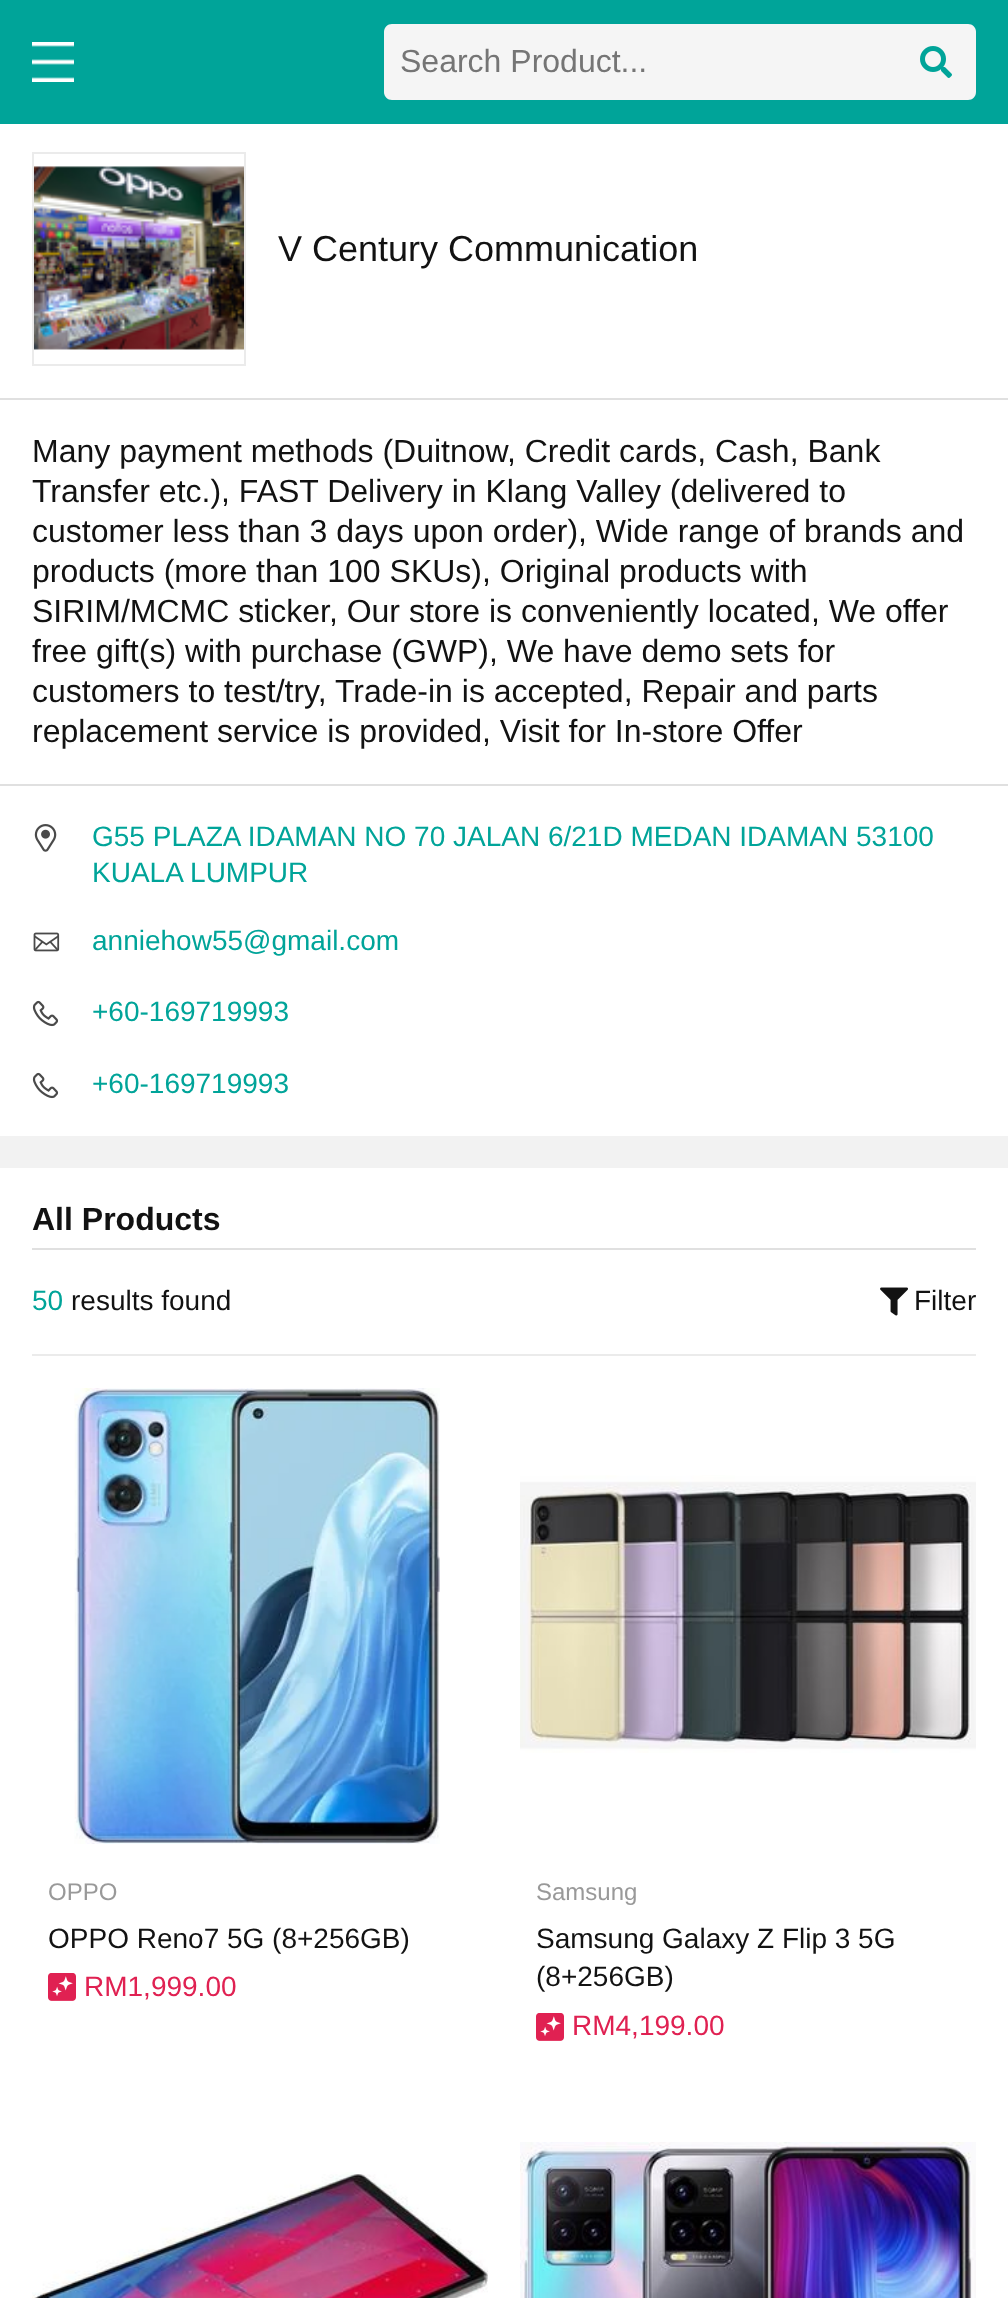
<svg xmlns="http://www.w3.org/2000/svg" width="1008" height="2298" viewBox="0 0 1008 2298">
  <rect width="100%" height="100%" fill="#f2f2f2"/>
  <rect x="0" y="0" width="1008" height="124" fill="#00a499"/>
  <image x="32" y="42" width="42" height="40" href="img1.png"/>
  <path d="M392 24H898V100H392C387.5 100 384 96.5 384 92V32C384 27.5 387.5 24 392 24Z" fill="#f5f5f5"/>
  <text x="400" y="72" font-family="Liberation Sans" font-size="32" fill="#757575">Search Product...</text>
  <path d="M896 24H968C972.5 24 976 27.5 976 32V92C976 96.5 972.5 100 968 100H896Z" fill="#f5f5f5"/>
  <image x="920" y="46" width="32" height="32" href="img2.png"/>
  <rect x="0" y="124" width="1008" height="1012" fill="#ffffff"/>
  <rect x="33" y="153" width="212" height="212" fill="none" stroke="#ebebeb" stroke-width="2"/>
  <image x="34" y="166" width="210" height="184" href="img3.png"/>
  <text x="278" y="261" font-family="Liberation Sans" font-size="36" fill="#121212">V Century Communication</text>
  <rect x="0" y="398" width="1008" height="2" fill="#e0e0e0"/>
  <text x="32" y="462" font-family="Liberation Sans" font-size="32" fill="#121212">Many payment methods (Duitnow, Credit cards, Cash, Bank</text>
  <text x="32" y="502" font-family="Liberation Sans" font-size="32" fill="#121212">Transfer etc.), FAST Delivery in Klang Valley (delivered to</text>
  <text x="32" y="542" font-family="Liberation Sans" font-size="32" fill="#121212">customer less than 3 days upon order), Wide range of brands and</text>
  <text x="32" y="582" font-family="Liberation Sans" font-size="32" fill="#121212">products (more than 100 SKUs), Original products with</text>
  <text x="32" y="622" font-family="Liberation Sans" font-size="32" fill="#121212">SIRIM/MCMC sticker, Our store is conveniently located, We offer</text>
  <text x="32" y="662" font-family="Liberation Sans" font-size="32" fill="#121212">free gift(s) with purchase (GWP), We have demo sets for</text>
  <text x="32" y="702" font-family="Liberation Sans" font-size="32" fill="#121212">customers to test/try, Trade-in is accepted, Repair and parts</text>
  <text x="32" y="742" font-family="Liberation Sans" font-size="32" fill="#121212">replacement service is provided, Visit for In-store Offer</text>
  <rect x="0" y="784" width="1008" height="2" fill="#e0e0e0"/>
  <image x="34" y="824" width="23" height="28" href="img4.png"/>
  <text x="92" y="846" font-family="Liberation Sans" font-size="28" fill="#00a499">G55 PLAZA IDAMAN NO 70 JALAN 6/21D MEDAN IDAMAN 53100</text>
  <text x="92" y="882" font-family="Liberation Sans" font-size="28" fill="#00a499">KUALA LUMPUR</text>
  <image x="33" y="932" width="27" height="20" href="img5.png"/>
  <text x="92" y="950" font-family="Liberation Sans" font-size="28" fill="#00a499">anniehow55@gmail.com</text>
  <image x="32" y="1000" width="27" height="27" href="img6.png"/>
  <text x="92" y="1021" font-family="Liberation Sans" font-size="28" fill="#00a499">+60-169719993</text>
  <image x="32" y="1072" width="27" height="27" href="img6.png"/>
  <text x="92" y="1093" font-family="Liberation Sans" font-size="28" fill="#00a499">+60-169719993</text>
  <rect x="0" y="1168" width="1008" height="1130" fill="#ffffff"/>
  <rect x="32" y="1248" width="944" height="2" fill="#e0e0e0"/>
  <text x="32" y="1230" font-family="Liberation Sans" font-size="32" font-weight="bold" fill="#121212">All Products</text>
  <rect x="32" y="1354" width="944" height="2" fill="#ebebeb"/>
  <text x="32" y="1310" font-family="Liberation Sans" font-size="28" fill="#00a499">50</text>
  <text x="71" y="1310" font-family="Liberation Sans" font-size="28" fill="#121212">results found</text>
  <image x="880" y="1287" width="28" height="29" href="img7.png"/>
  <text x="914" y="1310" font-family="Liberation Sans" font-size="28" fill="#121212">Filter</text>
  <image x="74" y="1388" width="366" height="456" href="img8.png"/>
  <text x="48" y="1900" font-family="Liberation Sans" font-size="24" fill="#999999">OPPO</text>
  <text x="48" y="1948" font-family="Liberation Sans" font-size="28" fill="#121212">OPPO Reno7 5G (8+256GB)</text>
  <image x="48" y="1973" width="28" height="28" href="img9.png"/>
  <text x="84" y="1996" font-family="Liberation Sans" font-size="28" fill="#e02152">RM1,999.00</text>
  <image x="520" y="1475" width="456" height="278" href="img10.png"/>
  <text x="536" y="1900" font-family="Liberation Sans" font-size="24" fill="#999999">Samsung</text>
  <text x="536" y="1948" font-family="Liberation Sans" font-size="28" fill="#121212">Samsung Galaxy Z Flip 3 5G</text>
  <text x="536" y="1986" font-family="Liberation Sans" font-size="28" fill="#121212">(8+256GB)</text>
  <image x="536" y="2013" width="28" height="28" href="img9.png"/>
  <text x="572" y="2035" font-family="Liberation Sans" font-size="28" fill="#e02152">RM4,199.00</text>
  <image x="32" y="2172" width="456" height="126" href="img11.png"/>
  <image x="520" y="2142" width="456" height="156" href="img12.png"/>
</svg>
